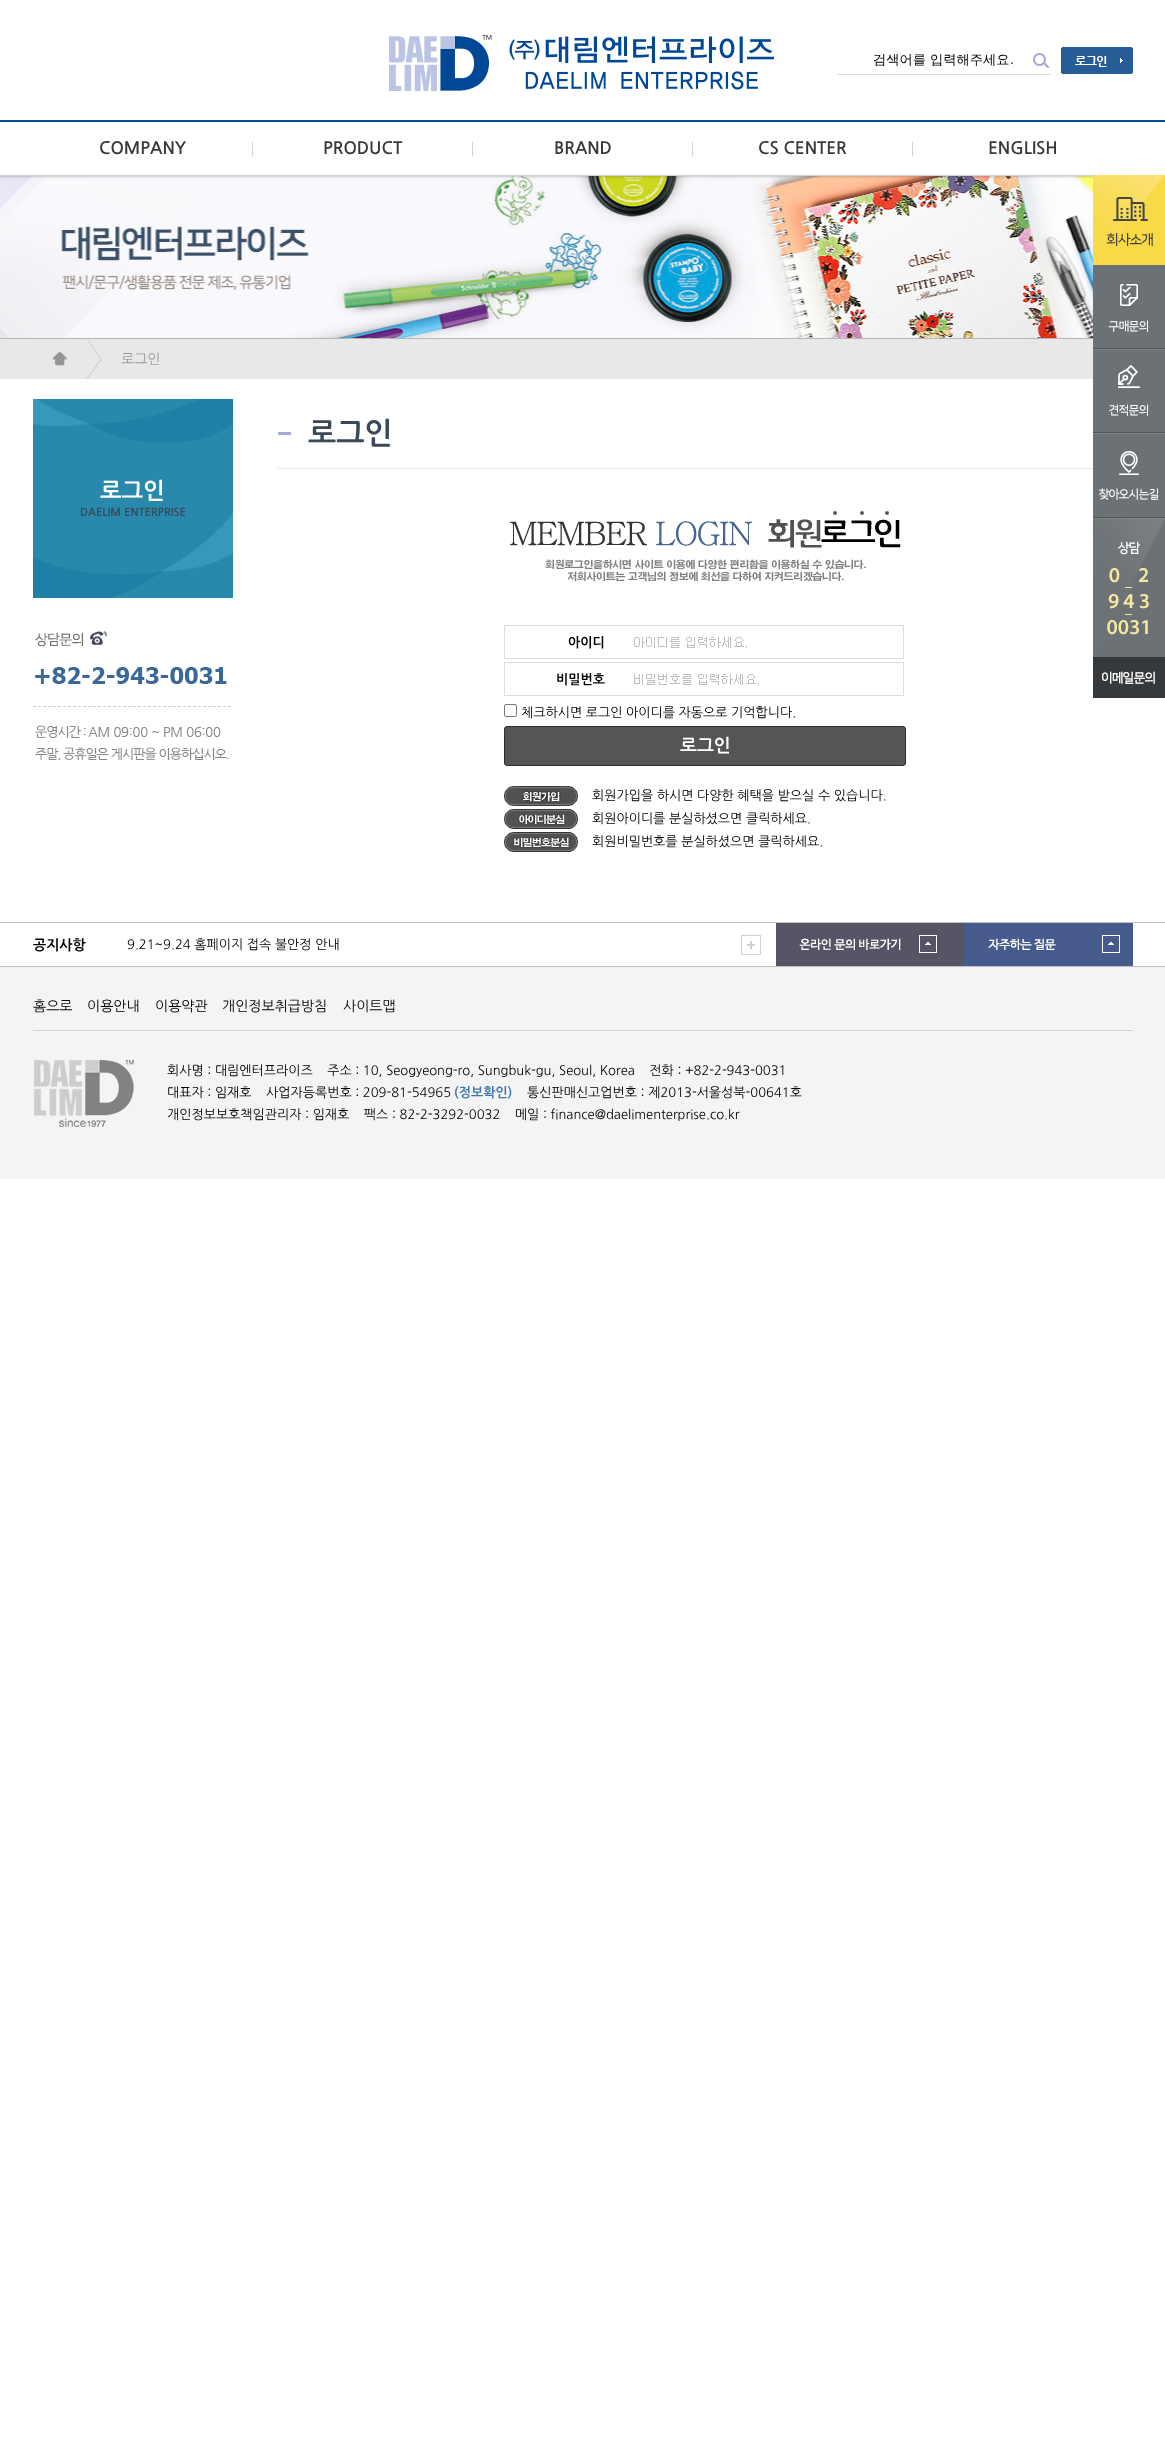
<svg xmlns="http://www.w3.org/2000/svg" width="1165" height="2453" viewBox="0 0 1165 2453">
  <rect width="100%" height="100%" fill="#ffffff"/>
  <rect x="0" y="120" width="1165" height="2" fill="#004ea2"/>
  <image x="389" y="35" width="385" height="56" href="img1.png"/>
  <rect x="837" y="74" width="214" height="1" fill="#dddddd"/>
  <text x="873" y="64" font-family="WenQuanYi Zen Hei" font-size="13.25" font-weight="500" fill="#000000">검색어를 입력해주세요</text>
  <text x="1010" y="64" font-family="Liberation Sans" font-size="13.25" fill="#000000">.</text>
  <image x="1033" y="53" width="16" height="15" href="img2.png"/>
  <image x="1061" y="47" width="72" height="27" href="img3.png"/>
  <rect x="252" y="142" width="1" height="14" fill="#d2d2d2"/>
  <text x="99" y="154" font-family="NanumGothic" font-size="17" font-weight="bold" fill="#393939">COMPANY</text>
  <rect x="472" y="142" width="1" height="14" fill="#d2d2d2"/>
  <text x="323" y="154" font-family="NanumGothic" font-size="17" font-weight="bold" fill="#393939">PRODUCT</text>
  <rect x="692" y="142" width="1" height="14" fill="#d2d2d2"/>
  <text x="554" y="154" font-family="NanumGothic" font-size="17" font-weight="bold" fill="#393939">BRAND</text>
  <rect x="912" y="142" width="1" height="14" fill="#d2d2d2"/>
  <text x="758" y="154" font-family="NanumGothic" font-size="17" font-weight="bold" fill="#393939">CS CENTER</text>
  <text x="988" y="154" font-family="NanumGothic" font-size="17" font-weight="bold" fill="#393939">ENGLISH</text>
  <image x="0" y="175" width="1093" height="163" href="img4.png"/>
  <rect x="0" y="338" width="1093" height="1" fill="#b7b7b7"/>
  <image x="1093" y="175" width="72" height="90" href="img5.png"/>
  <image x="1093" y="265" width="72" height="85" href="img6.png"/>
  <image x="1093" y="350" width="72" height="84" href="img7.png"/>
  <image x="1093" y="434" width="72" height="85" href="img8.png"/>
  <image x="1093" y="519" width="72" height="138" href="img9.png"/>
  <image x="1093" y="657" width="72" height="41" href="img10.png"/>
  <rect x="0" y="339" width="1093" height="40" fill="#e8e8e8"/>
  <image x="52" y="351" width="15" height="15" href="img11.png"/>
  <image x="86" y="339" width="16" height="40" href="img12.png"/>
  <text x="121" y="364" font-family="NanumGothic" font-size="14" fill="#9b9b9b">로그인</text>
  <image x="33" y="399" width="200" height="199" href="img13.png"/>
  <text x="100" y="499" font-family="NanumGothic" font-size="23" font-weight="bold" fill="#ffffff">로그인</text>
  <text x="80" y="516" font-family="NanumGothic" font-size="11" font-weight="bold" fill="#3a4858">DAELIM ENTERPRISE</text>
  <image x="33" y="631" width="198" height="129" href="img14.png"/>
  <rect x="278" y="432" width="13" height="3" fill="#a4abd6"/>
  <rect x="278" y="468" width="815" height="1" fill="#e8e8e8"/>
  <text x="308" y="444" font-family="NanumGothic" font-size="30" font-weight="bold" fill="#3a4858">로그인</text>
  <image x="510" y="511" width="391" height="71" href="img15.png"/>
  <rect x="504.5" y="625.5" width="399" height="33" fill="none" stroke="#dddddd"/>
  <text x="568" y="647" font-family="NanumGothic" font-size="13" font-weight="bold" fill="#000000">아이디</text>
  <image x="634" y="637" width="113" height="11" href="img16.png"/>
  <rect x="504.5" y="662.5" width="399" height="33" fill="none" stroke="#dddddd"/>
  <text x="556" y="684" font-family="NanumGothic" font-size="13" font-weight="bold" fill="#000000">비밀번호</text>
  <image x="634" y="674" width="125" height="11" href="img17.png"/>
  <rect x="504.5" y="704.5" width="12" height="12" rx="1.5" fill="none" stroke="#767676"/>
  <text x="521" y="717" font-family="NanumGothic" font-size="13" fill="#000000">체크하시면 로그인 아이디를 자동으로 기억합니다.</text>
  <rect x="504.5" y="726.5" width="401" height="39" rx="2.5" fill="#555555" stroke="#2e2e2e"/>
  <text x="680" y="752" font-family="NanumGothic" font-size="18" font-weight="bold" fill="#ffffff">로그인</text>
  <image x="504" y="786" width="74" height="20" href="img18.png"/>
  <text x="592" y="800" font-family="NanumGothic" font-size="13" fill="#000000">회원가입을 하시면 다양한 혜택을 받으실 수 있습니다.</text>
  <image x="504" y="809" width="74" height="20" href="img19.png"/>
  <text x="592" y="823" font-family="NanumGothic" font-size="13" fill="#000000">회원아이디를 분실하셨으면 클릭하세요.</text>
  <image x="504" y="832" width="74" height="20" href="img20.png"/>
  <text x="592" y="846" font-family="NanumGothic" font-size="13" fill="#000000">회원비밀번호를 분실하셨으면 클릭하세요.</text>
  <rect x="0" y="922" width="1165" height="1" fill="#c0c0c0"/>
  <rect x="0" y="966" width="1165" height="1" fill="#c0c0c0"/>
  <text x="33" y="950" font-family="NanumGothic" font-size="14" font-weight="bold" fill="#000000">공지사항</text>
  <text x="127" y="949" font-family="NanumGothic" font-size="13" fill="#000000">9.21~9.24 홈페이지 접속 불안정 안내</text>
  <image x="741" y="935" width="20" height="20" href="img21.png"/>
  <image x="776" y="923" width="188" height="43" href="img22.png"/>
  <image x="964" y="923" width="169" height="43" href="img23.png"/>
  <rect x="0" y="967" width="1165" height="212" fill="#f4f4f4"/>
  <rect x="33" y="1030" width="1100" height="1" fill="#d4d4d4"/>
  <text x="33" y="1011" font-family="NanumGothic" font-size="14" fill="#000000">홈으로</text>
  <text x="87" y="1011" font-family="NanumGothic" font-size="14" fill="#000000">이용안내</text>
  <text x="155" y="1011" font-family="NanumGothic" font-size="14" fill="#000000">이용약관</text>
  <text x="222" y="1011" font-family="NanumGothic" font-size="14" fill="#000000">개인정보취급방침</text>
  <text x="343" y="1011" font-family="NanumGothic" font-size="14" fill="#000000">사이트맵</text>
  <image x="34" y="1060" width="100" height="67" href="img24.png"/>
  <text x="167" y="1075" font-family="NanumGothic" font-size="13" fill="#000000" xml:space="preserve">회사명 : 대림엔터프라이즈    주소 : 10, Seogyeong-ro, Sungbuk-gu, Seoul, Korea    전화 : +82-2-943-0031</text>
  <text x="167" y="1097" font-family="NanumGothic" font-size="13" fill="#000000" xml:space="preserve">대표자 : 임재호    사업자등록번호 : 209-81-54965</text>
  <text x="454" y="1097" font-family="NanumGothic" font-size="13" font-weight="bold" fill="#4079ac">(정보확인)</text>
  <text x="527" y="1097" font-family="NanumGothic" font-size="13" fill="#000000">통신판매신고업번호 : 제2013-서울성북-00641호</text>
  <text x="167" y="1119" font-family="NanumGothic" font-size="13" fill="#000000" xml:space="preserve">개인정보보호책임관리자 : 임재호    팩스 : 82-2-3292-0032    메일 : finance@daelimenterprise.co.kr</text>
</svg>
